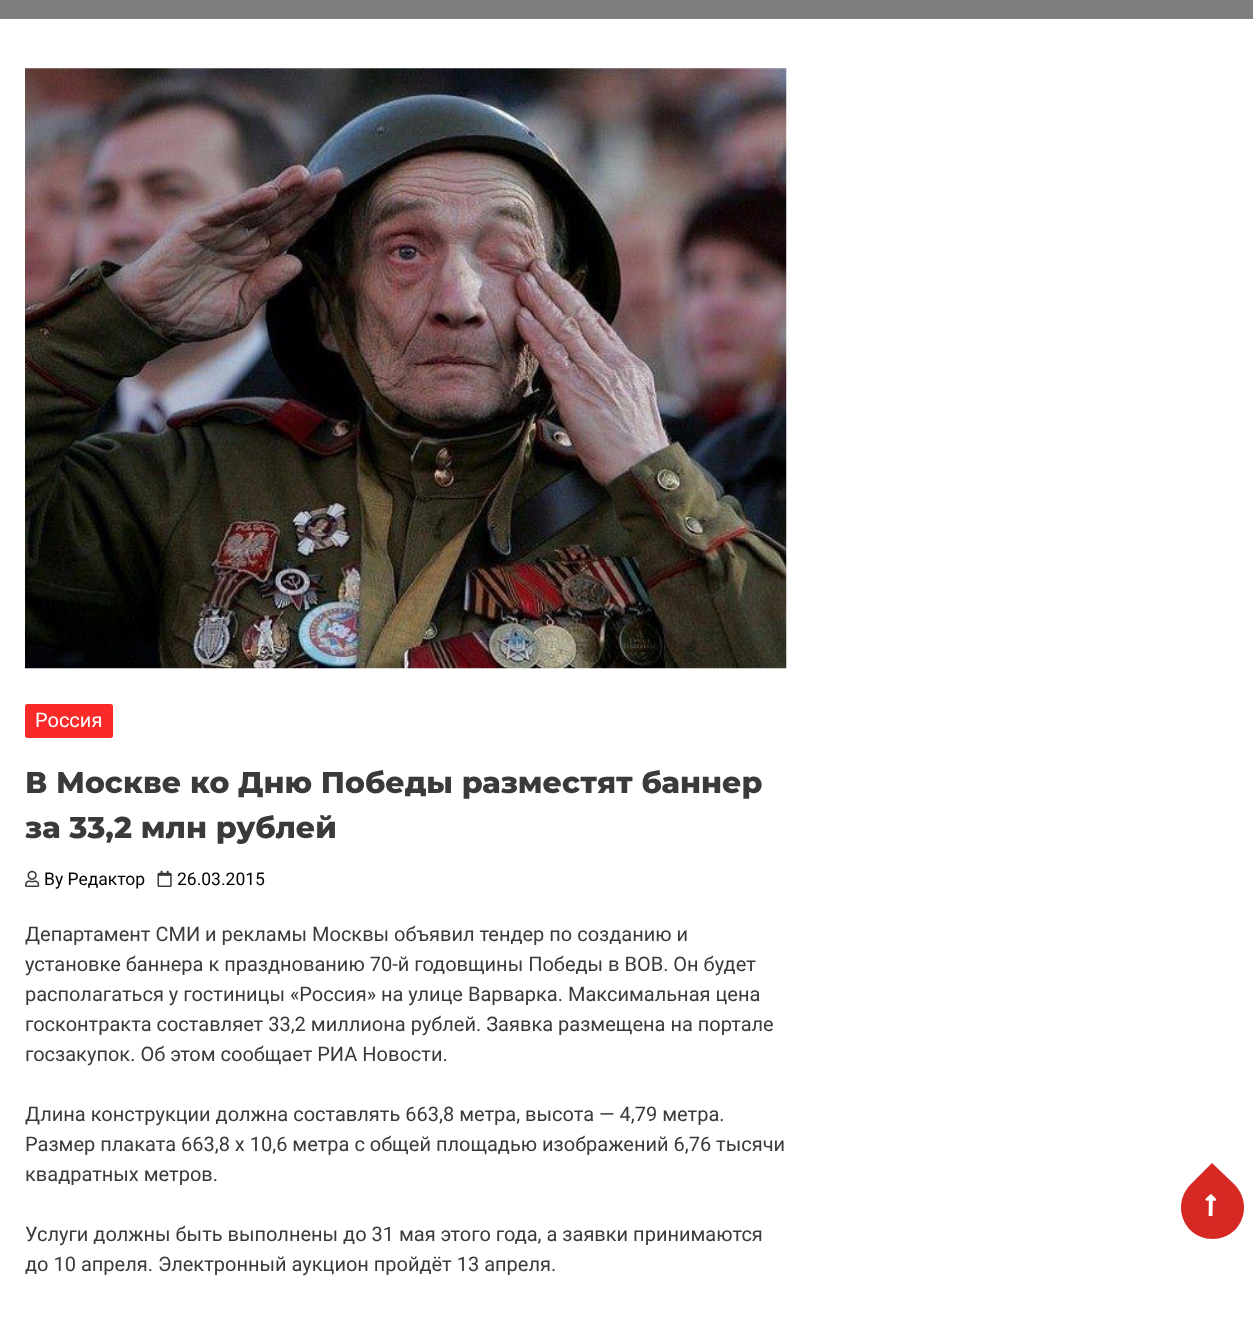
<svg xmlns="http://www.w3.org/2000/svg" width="1253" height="1319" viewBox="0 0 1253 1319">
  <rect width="100%" height="100%" fill="#ffffff"/>
  <rect x="0" y="0" width="1253" height="19" fill="#7e7e7e"/>
  <image x="25" y="68" width="762" height="601" href="img1.png"/>
  <rect x="25" y="704" width="88" height="34" rx="2.5" fill="#f92a28"/>
  <text x="35" y="727" font-family="Roboto" font-size="20" fill="#ffffff">Россия</text>
  <text x="25" y="793" font-family="Montserrat" font-size="30" font-weight="800" fill="#3a3a3a">В Москве ко Дню Победы разместят баннер</text>
  <text x="25" y="838" font-family="Montserrat" font-size="30" font-weight="800" fill="#3a3a3a">за 33,2 млн рублей</text>
  <image x="25" y="870" width="15" height="17" href="img2.png"/>
  <text x="44" y="885" font-family="Roboto" font-size="17.5" fill="#000000">By Редактор</text>
  <image x="157" y="870" width="15" height="17" href="img3.png"/>
  <text x="177" y="885" font-family="Roboto" font-size="17.5" fill="#000000">26.03.2015</text>
  <text x="25" y="941" font-family="Roboto" font-size="20" fill="#3a3a3a">Департамент СМИ и рекламы Москвы объявил тендер по созданию и</text>
  <text x="25" y="971" font-family="Roboto" font-size="20" fill="#3a3a3a">установке баннера к празднованию 70-й годовщины Победы в ВОВ. Он будет</text>
  <text x="25" y="1001" font-family="Roboto" font-size="20" fill="#3a3a3a">располагаться у гостиницы «Россия» на улице Варварка. Максимальная цена</text>
  <text x="25" y="1031" font-family="Roboto" font-size="20" fill="#3a3a3a">госконтракта составляет 33,2 миллиона рублей. Заявка размещена на портале</text>
  <text x="25" y="1061" font-family="Roboto" font-size="20" fill="#3a3a3a">госзакупок. Об этом сообщает РИА Новости.</text>
  <text x="25" y="1121" font-family="Roboto" font-size="20" fill="#3a3a3a">Длина конструкции должна составлять 663,8 метра, высота — 4,79 метра.</text>
  <text x="25" y="1151" font-family="Roboto" font-size="20" fill="#3a3a3a">Размер плаката 663,8 х 10,6 метра с общей площадью изображений 6,76 тысячи</text>
  <text x="25" y="1181" font-family="Roboto" font-size="20" fill="#3a3a3a">квадратных метров.</text>
  <text x="25" y="1241" font-family="Roboto" font-size="20" fill="#3a3a3a">Услуги должны быть выполнены до 31 мая этого года, а заявки принимаются</text>
  <text x="25" y="1271" font-family="Roboto" font-size="20" fill="#3a3a3a">до 10 апреля. Электронный аукцион пройдёт 13 апреля.</text>
  <path d="M1190 1185L1212 1163L1235 1185C1247 1198 1247 1217 1235 1230C1222 1242 1203 1242 1190 1230C1178 1217 1178 1198 1190 1185Z" fill="#d72924"/>
  <image x="1205" y="1194" width="12" height="23" href="img4.png"/>
</svg>
